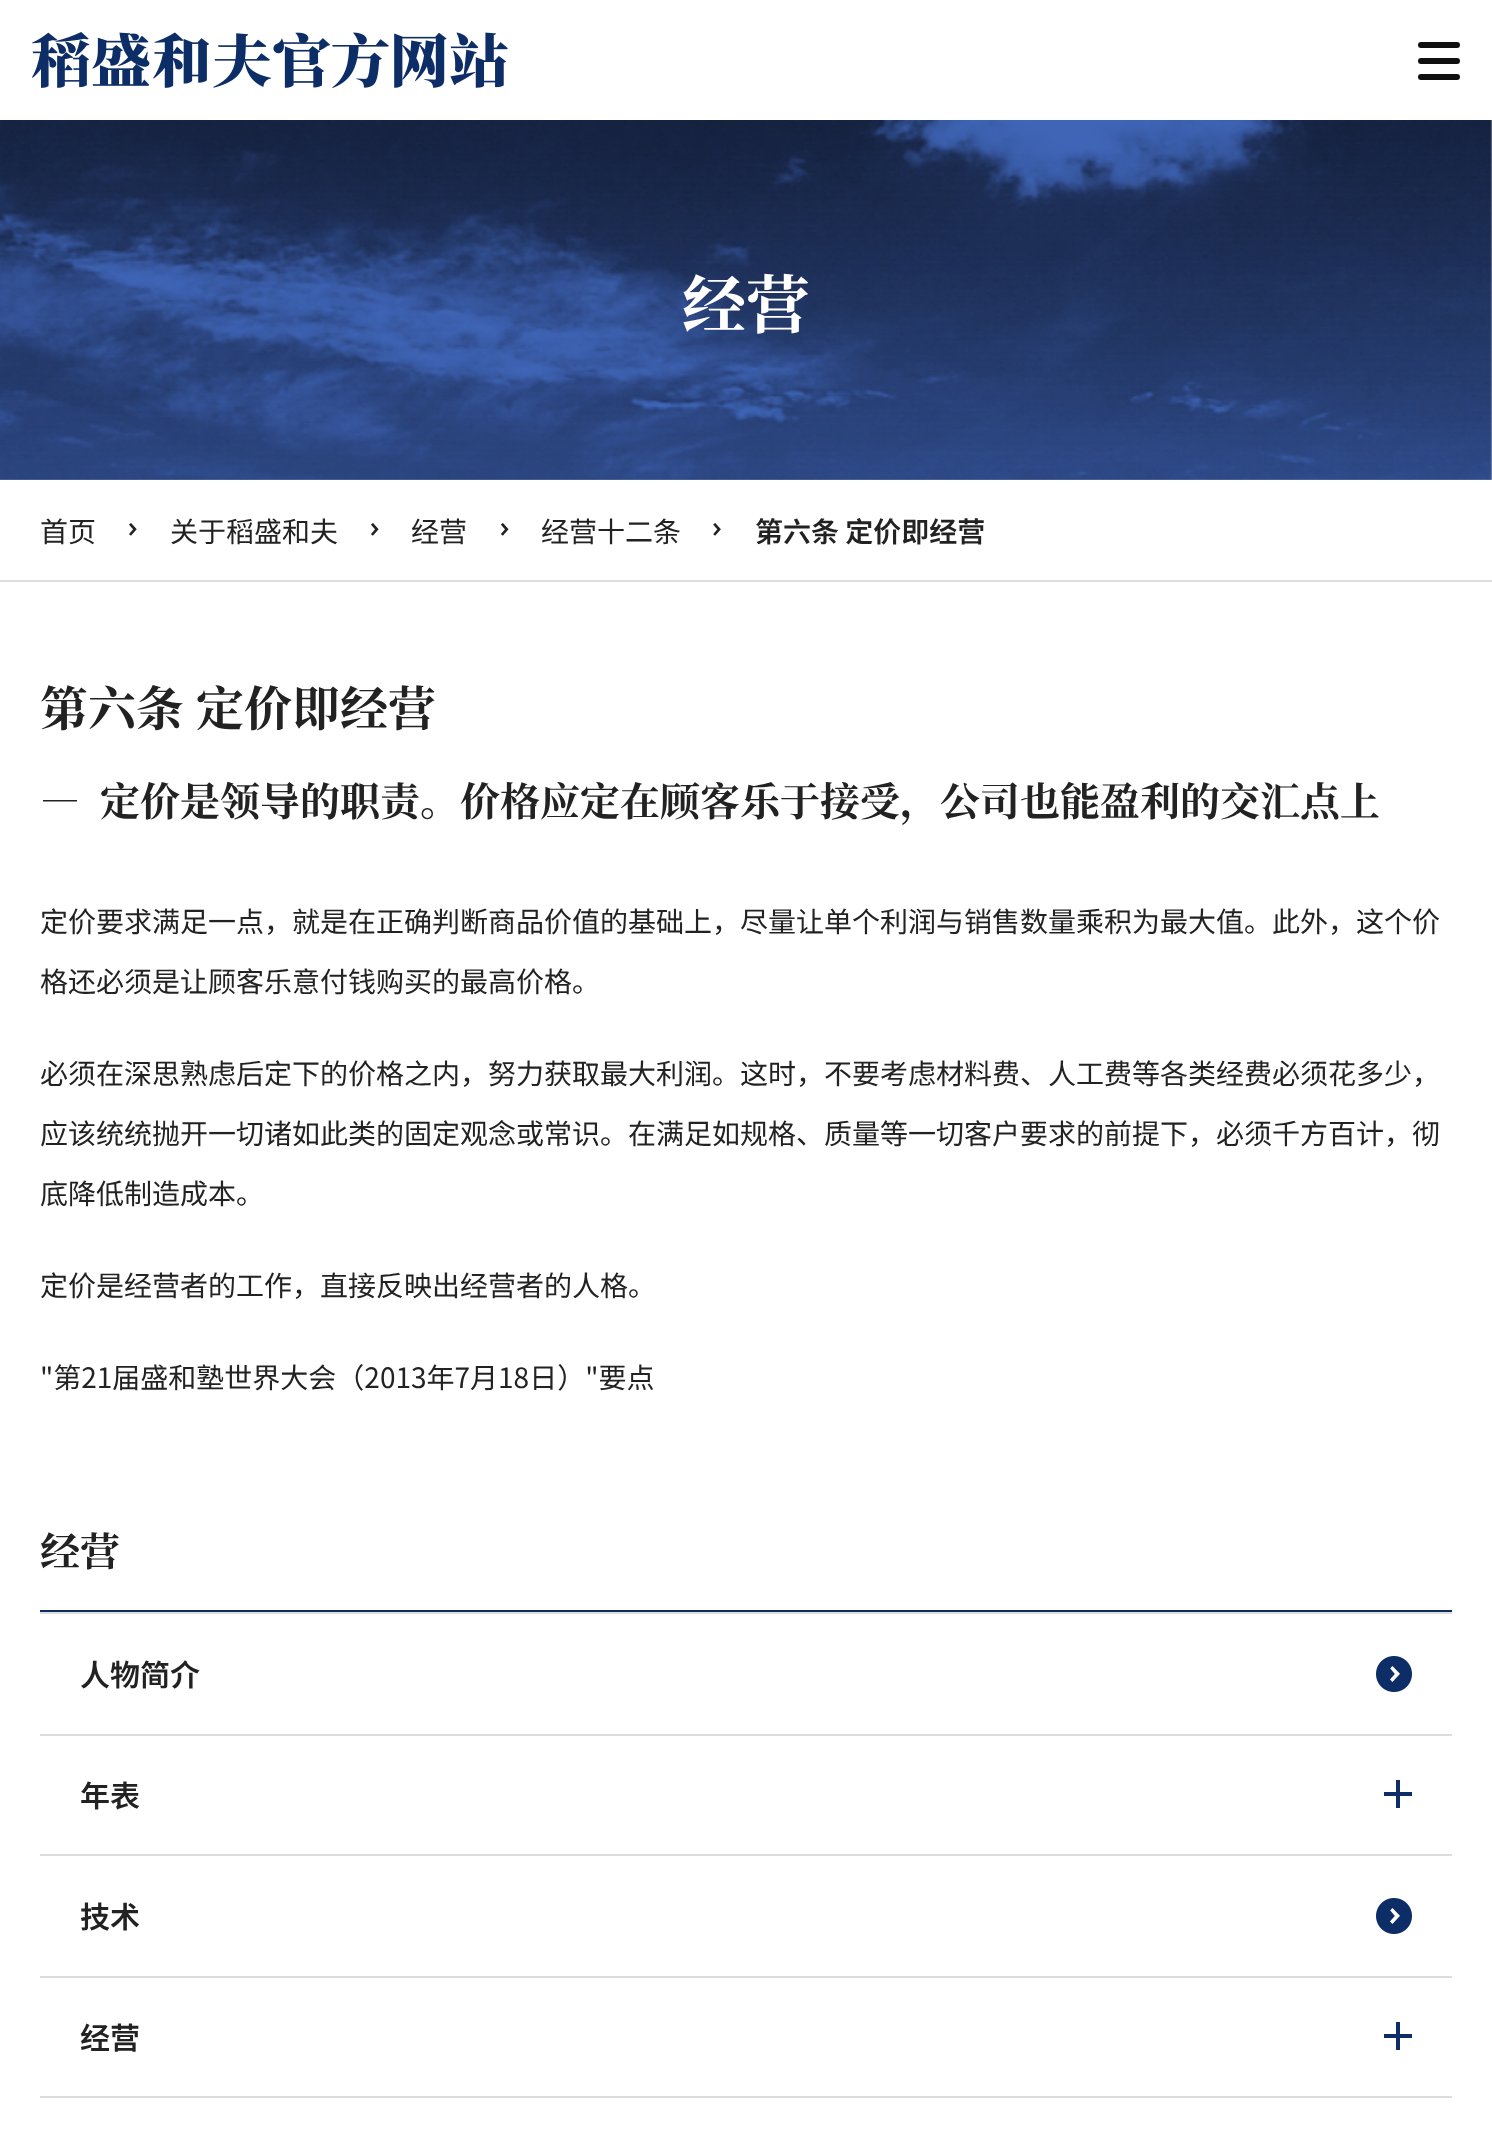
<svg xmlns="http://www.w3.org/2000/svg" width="1492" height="2129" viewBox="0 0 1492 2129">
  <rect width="100%" height="100%" fill="#ffffff"/>
  <image x="32" y="32" width="476" height="56" href="img1.png"/>
  <rect x="1418" y="42" width="42" height="6" rx="3" fill="#101010"/>
  <rect x="1418" y="58" width="42" height="6" rx="3" fill="#101010"/>
  <rect x="1418" y="74" width="42" height="6" rx="3" fill="#101010"/>
  <image x="0" y="120" width="1492" height="360" href="img2.png"/>
  <text x="682" y="328" font-family="Noto Serif SC" font-size="64" font-weight="200" fill="#ffffff">经营</text>
  <rect x="0" y="580" width="1492" height="2" fill="#dddddd"/>
  <text x="40" y="542" font-family="Noto Sans SC" font-size="28" fill="#222222">首页</text>
  <image x="129" y="523" width="8" height="13" href="img3.png"/>
  <text x="170" y="542" font-family="Noto Sans SC" font-size="28" fill="#222222">关于稻盛和夫</text>
  <image x="371" y="523" width="8" height="13" href="img4.png"/>
  <text x="411" y="542" font-family="Noto Sans SC" font-size="28" fill="#222222">经营</text>
  <image x="500" y="523" width="9" height="13" href="img5.png"/>
  <text x="541" y="542" font-family="Noto Sans SC" font-size="28" fill="#222222">经营十二条</text>
  <image x="713" y="523" width="8" height="13" href="img6.png"/>
  <text x="755" y="542" font-family="Noto Sans SC" font-size="28" font-weight="600" fill="#222222">第六条 定价即经营</text>
  <text x="40" y="726" font-family="Noto Serif SC" font-size="48" font-weight="200" fill="#222222">第六条 定价即经营</text>
  <text x="40" y="816" font-family="Noto Serif SC" font-size="40" font-weight="200" fill="#222222">―</text>
  <text x="100" y="816" font-family="Noto Serif SC" font-size="40" font-weight="200" fill="#222222">定价是领导的职责。价格应定在顾客乐于接受，公司也能盈利的交汇点上</text>
  <text x="40" y="932" font-family="Noto Sans SC" font-size="28" fill="#222222">定价要求满足一点，就是在正确判断商品价值的基础上，尽量让单个利润与销售数量乘积为最大值。此外，这个价</text>
  <text x="40" y="992" font-family="Noto Sans SC" font-size="28" fill="#222222">格还必须是让顾客乐意付钱购买的最高价格。</text>
  <text x="40" y="1084" font-family="Noto Sans SC" font-size="28" fill="#222222">必须在深思熟虑后定下的价格之内，努力获取最大利润。这时，不要考虑材料费、人工费等各类经费必须花多少，</text>
  <text x="40" y="1144" font-family="Noto Sans SC" font-size="28" fill="#222222">应该统统抛开一切诸如此类的固定观念或常识。在满足如规格、质量等一切客户要求的前提下，必须千方百计，彻</text>
  <text x="40" y="1204" font-family="Noto Sans SC" font-size="28" fill="#222222">底降低制造成本。</text>
  <text x="40" y="1296" font-family="Noto Sans SC" font-size="28" fill="#222222">定价是经营者的工作，直接反映出经营者的人格。</text>
  <text x="40" y="1388" font-family="Noto Sans SC" font-size="28" fill="#222222">"第21届盛和塾世界大会（2013年7月18日）"要点</text>
  <rect x="40" y="1610" width="1412" height="2" fill="#0d2d67"/>
  <text x="40" y="1566" font-family="Noto Serif SC" font-size="40" font-weight="200" fill="#222222">经营</text>
  <rect x="40" y="1612" width="1412" height="2" fill="#dddddd"/>
  <text x="80" y="1686" font-family="Noto Sans SC" font-size="30" font-weight="600" fill="#222222">人物简介</text>
  <image x="1376" y="1656" width="36" height="36" href="img7.png"/>
  <rect x="40" y="1734" width="1412" height="2" fill="#dddddd"/>
  <text x="80" y="1807" font-family="Noto Sans SC" font-size="30" font-weight="600" fill="#222222">年表</text>
  <image x="1384" y="1780" width="28" height="28" href="img8.png"/>
  <rect x="40" y="1854" width="1412" height="2" fill="#dddddd"/>
  <text x="80" y="1928" font-family="Noto Sans SC" font-size="30" font-weight="600" fill="#222222">技术</text>
  <image x="1376" y="1898" width="36" height="36" href="img7.png"/>
  <rect x="40" y="1976" width="1412" height="2" fill="#dddddd"/>
  <text x="80" y="2049" font-family="Noto Sans SC" font-size="30" font-weight="600" fill="#222222">经营</text>
  <image x="1384" y="2022" width="28" height="28" href="img8.png"/>
  <rect x="40" y="2096" width="1412" height="2" fill="#dddddd"/>
</svg>
